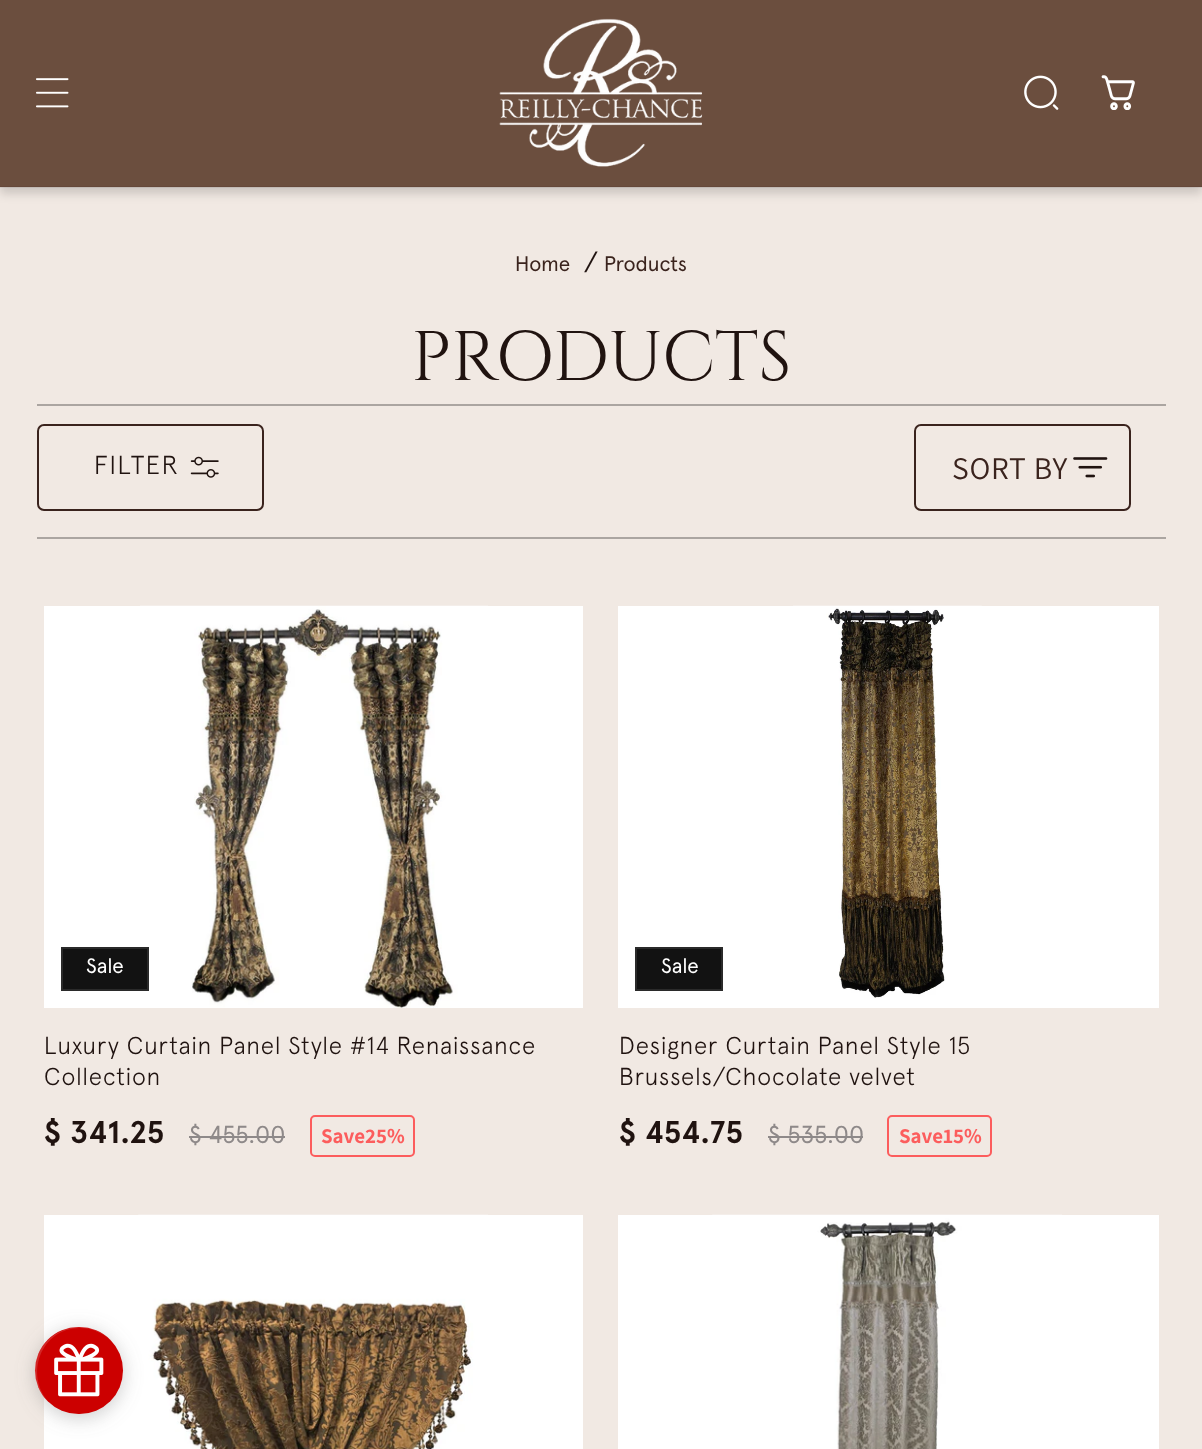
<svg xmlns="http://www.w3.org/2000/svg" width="1202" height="1449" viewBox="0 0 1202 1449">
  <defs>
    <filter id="blur1" x="-50%" y="-200%" width="200%" height="500%"><feGaussianBlur stdDeviation="5"/></filter>
    <filter id="blur2" x="-50%" y="-200%" width="200%" height="500%"><feGaussianBlur stdDeviation="9.5"/></filter>
  </defs>
  <rect width="100%" height="100%" fill="#f1e9e3"/>
  <rect x="0" y="7" width="1202" height="187" fill="#000000" fill-opacity="0.15" filter="url(#blur1)"/>
  <rect x="0" y="0" width="1202" height="187" fill="#6b4e3e"/>
  <rect x="0" y="186" width="1202" height="2" fill="#201310" fill-opacity="0.08"/>
  <image x="36" y="78" width="33" height="30" href="img1.png"/>
  <image x="499" y="18" width="204" height="149" href="img2.png"/>
  <image x="1024" y="75" width="35" height="35" href="img3.png"/>
  <image x="1101" y="75" width="34" height="35" href="img4.png"/>
  <text x="515" y="271" font-family="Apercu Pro" font-size="21" fill="#3a231d">Home</text>
  <text x="584" y="271" font-family="Apercu Pro" font-size="26" fill="#201310">/</text>
  <text x="604" y="271" font-family="Apercu Pro" font-size="21" fill="#3a231d">Products</text>
  <text x="411" y="380" font-family="Cinzel" font-size="70" fill="#201310">PRODUCTS</text>
  <rect x="37" y="404" width="1129" height="2" fill="#aba5a1"/>
  <rect x="37" y="537" width="1129" height="2" fill="#aba5a1"/>
  <rect x="38" y="425" width="225" height="85" rx="6" fill="none" stroke="#3a231d" stroke-width="2"/>
  <text x="94" y="474" font-family="Apercu Pro" font-size="26" font-weight="300" letter-spacing="1.75" fill="#201310">FILTER</text>
  <image x="190" y="456" width="29" height="22" href="img5.png"/>
  <image x="1073" y="457" width="35" height="21" href="img6.png"/>
  <rect x="915" y="425" width="215" height="85" rx="6" fill="none" stroke="#3a231d" stroke-width="2"/>
  <text x="952" y="479" font-family="Assistant" font-size="31.5" letter-spacing="0.75" fill="#3a231d">SORT BY</text>
  <rect x="44" y="606" width="539" height="402" fill="#ffffff"/>
  <image x="140" y="605" width="348" height="403" href="img7.png"/>
  <rect x="62" y="948" width="86" height="42" fill="#121212" stroke="#2a2a2a" stroke-width="2"/>
  <text x="86" y="973" font-family="Apercu Pro" font-size="21" fill="#ffffff">Sale</text>
  <text x="44" y="1054" font-family="Apercu Pro" font-size="24.5" font-weight="300" letter-spacing="0.9" fill="#201310">Luxury Curtain Panel Style #14 Renaissance</text>
  <text x="44" y="1085" font-family="Apercu Pro" font-size="24.5" font-weight="300" letter-spacing="0.9" fill="#201310">Collection</text>
  <text x="44" y="1143" font-family="Apercu Pro" font-size="31.5" font-weight="bold" letter-spacing="0.9" fill="#201310">$ 341.25</text>
  <text x="189" y="1143" font-family="Apercu Pro" font-size="24.5" letter-spacing="0.5" fill="#8e8989">$ 455.00</text>
  <rect x="189" y="1136" width="96" height="2" fill="#8e8989"/>
  <rect x="311" y="1116" width="103" height="40" rx="4" fill="none" stroke="#fc5d5d" stroke-width="2"/>
  <text x="321" y="1143" font-family="Assistant" font-size="21" font-weight="bold" fill="#fc5d5d">Save25%</text>
  <rect x="618" y="606" width="541" height="402" fill="#ffffff"/>
  <image x="793" y="605" width="189" height="393" href="img8.png"/>
  <rect x="636" y="948" width="86" height="42" fill="#121212" stroke="#2a2a2a" stroke-width="2"/>
  <text x="661" y="973" font-family="Apercu Pro" font-size="21" fill="#ffffff">Sale</text>
  <text x="619" y="1054" font-family="Apercu Pro" font-size="24.5" font-weight="300" letter-spacing="0.9" fill="#201310">Designer Curtain Panel Style 15</text>
  <text x="619" y="1085" font-family="Apercu Pro" font-size="24.5" font-weight="300" letter-spacing="0.9" fill="#201310">Brussels/Chocolate velvet</text>
  <text x="619" y="1143" font-family="Apercu Pro" font-size="31.5" font-weight="bold" letter-spacing="0.9" fill="#201310">$ 454.75</text>
  <text x="768" y="1143" font-family="Apercu Pro" font-size="24.5" letter-spacing="0.5" fill="#8e8989">$ 535.00</text>
  <rect x="768" y="1136" width="95" height="2" fill="#8e8989"/>
  <rect x="888" y="1116" width="103" height="40" rx="4" fill="none" stroke="#fc5d5d" stroke-width="2"/>
  <text x="899" y="1143" font-family="Assistant" font-size="21" font-weight="bold" fill="#fc5d5d">Save15%</text>
  <rect x="44" y="1215" width="539" height="234" fill="#ffffff"/>
  <image x="138" y="1214" width="350" height="235" href="img9.png"/>
  <rect x="618" y="1215" width="541" height="234" fill="#ffffff"/>
  <image x="712" y="1214" width="350" height="235" href="img10.png"/>
  <rect x="35" y="1330" width="88" height="88" rx="44" fill="#808080" fill-opacity="0.4" filter="url(#blur2)"/>
  <rect x="35" y="1327" width="88" height="87" rx="43.5" fill="#cc0000"/>
  <path d="M80 1328C93 1328 105 1334 113 1343C97 1323 66 1322 48 1340C30 1357 31 1386 49 1402C24 1375 41 1328 80 1328Z" fill="#ffffff" fill-opacity="0.15"/>
  <image x="54" y="1343" width="50" height="54" href="img11.png"/>
</svg>
